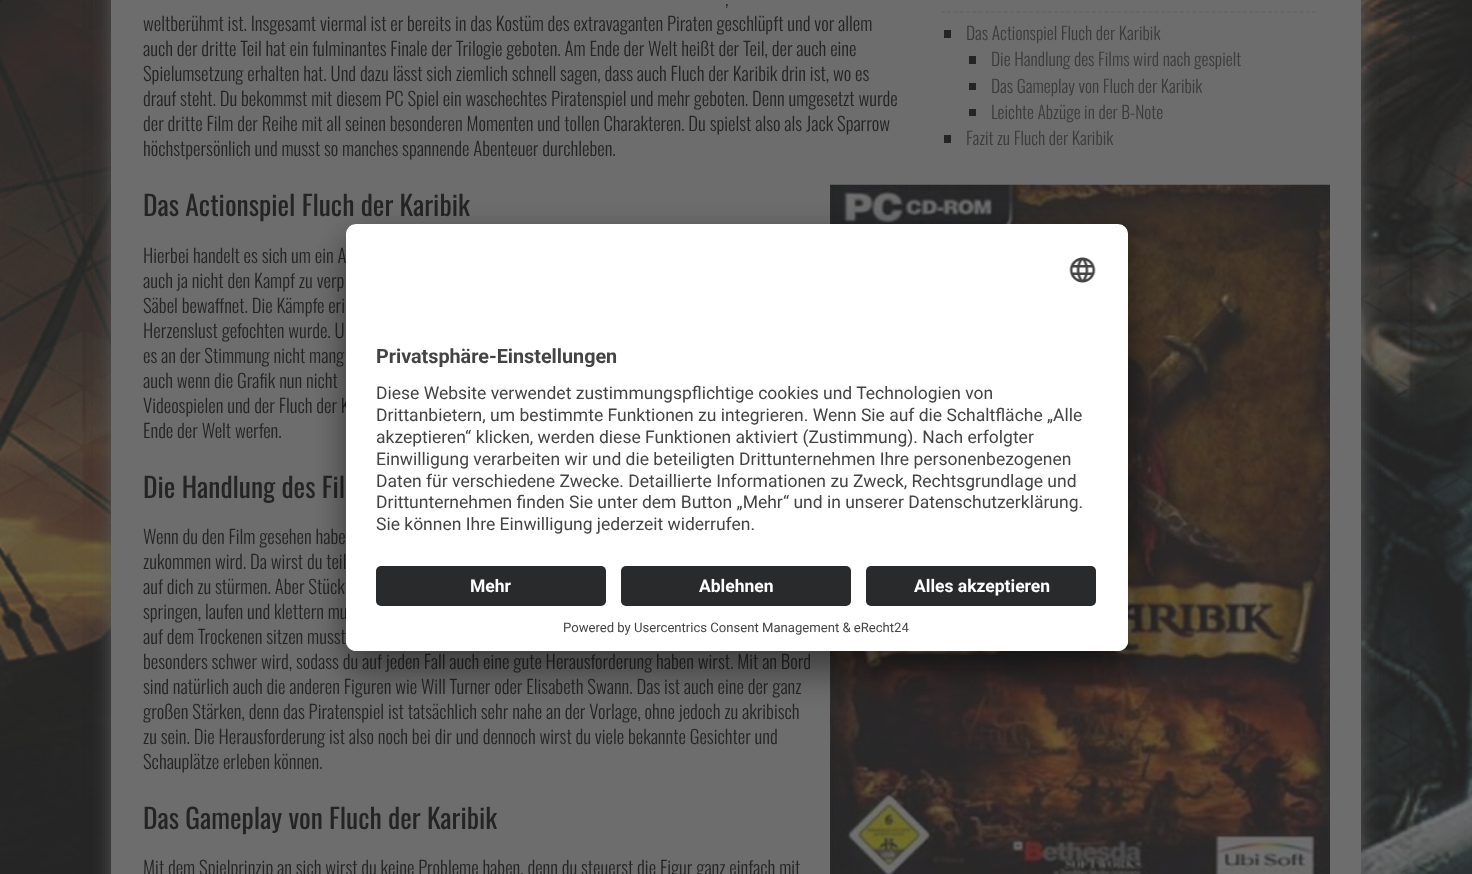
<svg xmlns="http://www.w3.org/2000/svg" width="1472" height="874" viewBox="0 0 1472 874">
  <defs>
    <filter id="blur1" x="-50%" y="-200%" width="200%" height="500%"><feGaussianBlur stdDeviation="9.5"/></filter>
    <filter id="blur2" x="-50%" y="-200%" width="200%" height="500%"><feGaussianBlur stdDeviation="17.5"/></filter>
    <filter id="blur3" x="-50%" y="-200%" width="200%" height="500%"><feGaussianBlur stdDeviation="16"/></filter>
    <clipPath id="clip1"><rect x="346" y="224" width="782" height="427" rx="10"/></clipPath>
    <clipPath id="clip2"><path d="M356 224H1118C1123.5 224 1128 228.5 1128 234V556H346V234C346 228.5 350.5 224 356 224Z"/></clipPath>
  </defs>
  <rect width="100%" height="100%" fill="#ffffff"/>
  <image x="0" y="0" width="1472" height="874" href="img1.png"/>
  <rect x="111" y="-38" width="1250" height="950" rx="9" fill="#525252" filter="url(#blur1)"/>
  <rect x="111" y="0" width="1250" height="874" fill="#6d6d6d"/>
  <text x="725" y="6" font-family="Oswald" font-size="18.75" font-weight="300" fill="#242424">,</text>
  <text x="143" y="31" font-family="Oswald" font-size="18.75" font-weight="300" fill="#242424">weltberühmt ist. Insgesamt viermal ist er bereits in das Kostüm des extravaganten Piraten geschlüpft und vor allem</text>
  <text x="143" y="56" font-family="Oswald" font-size="18.75" font-weight="300" fill="#242424">auch der dritte Teil hat ein fulminantes Finale der Trilogie geboten. Am Ende der Welt heißt der Teil, der auch eine</text>
  <text x="143" y="81" font-family="Oswald" font-size="18.75" font-weight="300" fill="#242424">Spielumsetzung erhalten hat. Und dazu lässt sich ziemlich schnell sagen, dass auch Fluch der Karibik drin ist, wo es</text>
  <text x="143" y="106" font-family="Oswald" font-size="18.75" font-weight="300" fill="#242424">drauf steht. Du bekommst mit diesem PC Spiel ein waschechtes Piratenspiel und mehr geboten. Denn umgesetzt wurde</text>
  <text x="143" y="131" font-family="Oswald" font-size="18.75" font-weight="300" fill="#242424">der dritte Film der Reihe mit all seinen besonderen Momenten und tollen Charakteren. Du spielst also als Jack Sparrow</text>
  <text x="143" y="156" font-family="Oswald" font-size="18.75" font-weight="300" fill="#242424">höchstpersönlich und musst so manches spannende Abenteuer durchleben.</text>
  <path d="M941 12H1316" fill="none" stroke="#616161" stroke-width="1.2" stroke-dasharray="3.75 2.54"/>
  <rect x="944" y="30" width="7" height="8" fill="#242424"/>
  <text x="966" y="40" font-family="Oswald" font-size="17.5" font-weight="300" fill="#3b3b3b">Das Actionspiel Fluch der Karibik</text>
  <rect x="969" y="56" width="7" height="8" fill="#242424"/>
  <text x="991" y="66" font-family="Oswald" font-size="17.5" font-weight="300" fill="#3b3b3b">Die Handlung des Films wird nach gespielt</text>
  <rect x="969" y="83" width="7" height="7" fill="#242424"/>
  <text x="991" y="93" font-family="Oswald" font-size="17.5" font-weight="300" fill="#3b3b3b">Das Gameplay von Fluch der Karibik</text>
  <rect x="969" y="109" width="7" height="7" fill="#242424"/>
  <text x="991" y="119" font-family="Oswald" font-size="17.5" font-weight="300" fill="#3b3b3b">Leichte Abzüge in der B-Note</text>
  <rect x="944" y="135" width="7" height="8" fill="#242424"/>
  <text x="966" y="145" font-family="Oswald" font-size="17.5" font-weight="300" fill="#3b3b3b">Fazit zu Fluch der Karibik</text>
  <text x="143" y="216" font-family="Oswald" font-size="27.5" fill="#242424">Das Actionspiel Fluch der Karibik</text>
  <image x="830" y="184" width="500" height="690" href="img2.png"/>
  <text x="143" y="263" font-family="Oswald" font-size="18.75" font-weight="300" fill="#242424">Hierbei handelt es sich um ein A</text>
  <text x="143" y="288" font-family="Oswald" font-size="18.75" font-weight="300" fill="#242424">auch ja nicht den Kampf zu verp</text>
  <text x="143" y="313" font-family="Oswald" font-size="18.75" font-weight="300" fill="#242424">Säbel bewaffnet. Die Kämpfe eri</text>
  <text x="143" y="338" font-family="Oswald" font-size="18.75" font-weight="300" fill="#242424">Herzenslust gefochten wurde. U</text>
  <text x="143" y="363" font-family="Oswald" font-size="18.75" font-weight="300" fill="#242424">es an der Stimmung nicht mang</text>
  <text x="143" y="388" font-family="Oswald" font-size="18.75" font-weight="300" fill="#242424">auch wenn die Grafik nun nicht</text>
  <text x="143" y="413" font-family="Oswald" font-size="18.75" font-weight="300" fill="#242424">Videospielen und der Fluch der K</text>
  <text x="143" y="438" font-family="Oswald" font-size="18.75" font-weight="300" fill="#242424">Ende der Welt werfen.</text>
  <text x="143" y="498" font-family="Oswald" font-size="27.5" fill="#242424">Die Handlung des Fil</text>
  <text x="143" y="544" font-family="Oswald" font-size="18.75" font-weight="300" fill="#242424">Wenn du den Film gesehen habe</text>
  <text x="143" y="569" font-family="Oswald" font-size="18.75" font-weight="300" fill="#242424">zukommen wird. Da wirst du teil</text>
  <text x="143" y="594" font-family="Oswald" font-size="18.75" font-weight="300" fill="#242424">auf dich zu stürmen. Aber Stück</text>
  <text x="143" y="619" font-family="Oswald" font-size="18.75" font-weight="300" fill="#242424">springen, laufen und klettern mu</text>
  <text x="143" y="644" font-family="Oswald" font-size="18.75" font-weight="300" fill="#242424">auf dem Trockenen sitzen musst</text>
  <text x="143" y="669" font-family="Oswald" font-size="18.75" font-weight="300" fill="#242424">besonders schwer wird, sodass du auf jeden Fall auch eine gute Herausforderung haben wirst. Mit an Bord</text>
  <text x="143" y="694" font-family="Oswald" font-size="18.75" font-weight="300" fill="#242424">sind natürlich auch die anderen Figuren wie Will Turner oder Elisabeth Swann. Das ist auch eine der ganz</text>
  <text x="143" y="719" font-family="Oswald" font-size="18.75" font-weight="300" fill="#242424">großen Stärken, denn das Piratenspiel ist tatsächlich sehr nahe an der Vorlage, ohne jedoch zu akribisch</text>
  <text x="143" y="744" font-family="Oswald" font-size="18.75" font-weight="300" fill="#242424">zu sein. Die Herausforderung ist also noch bei dir und dennoch wirst du viele bekannte Gesichter und</text>
  <text x="143" y="769" font-family="Oswald" font-size="18.75" font-weight="300" fill="#242424">Schauplätze erleben können.</text>
  <text x="143" y="829" font-family="Oswald" font-size="27.5" fill="#242424">Das Gameplay von Fluch der Karibik</text>
  <text x="143" y="875" font-family="Oswald" font-size="18.75" font-weight="300" fill="#242424">Mit dem Spielprinzip an sich wirst du keine Probleme haben, denn du steuerst die Figur ganz einfach mit</text>
  <rect x="346" y="249" width="782" height="427" rx="10" fill="#000000" fill-opacity="0.3" filter="url(#blur2)"/>
  <rect x="346" y="230" width="782" height="428" rx="10" fill="#000000" fill-opacity="0.22" filter="url(#blur3)"/>
  <rect x="346" y="224" width="782" height="427" rx="10" fill="#ffffff"/>
  <g clip-path="url(#clip1)">
    <g clip-path="url(#clip2)">
      <rect x="346" y="225" width="782" height="331" fill="#ffffff"/>
    </g>
  </g>
  <image x="1069" y="257" width="27" height="26" href="img3.png"/>
  <text x="376" y="363" font-family="Roboto" font-size="19.75" font-weight="bold" fill="#444444">Privatsphäre-Einstellungen</text>
  <text x="376" y="399" font-family="Roboto" font-size="17.5" fill="#444444">Diese Website verwendet zustimmungspflichtige cookies und Technologien von</text>
  <text x="376" y="421" font-family="Roboto" font-size="17.5" fill="#444444">Drittanbietern, um bestimmte Funktionen zu integrieren. Wenn Sie auf die Schaltfläche „Alle</text>
  <text x="376" y="443" font-family="Roboto" font-size="17.5" fill="#444444">akzeptieren“ klicken, werden diese Funktionen aktiviert (Zustimmung). Nach erfolgter</text>
  <text x="376" y="465" font-family="Roboto" font-size="17.5" fill="#444444">Einwilligung verarbeiten wir und die beteiligten Drittunternehmen Ihre personenbezogenen</text>
  <text x="376" y="487" font-family="Roboto" font-size="17.5" fill="#444444">Daten für verschiedene Zwecke. Detaillierte Informationen zu Zweck, Rechtsgrundlage und</text>
  <text x="376" y="508" font-family="Roboto" font-size="17.5" fill="#444444">Drittunternehmen finden Sie unter dem Button „Mehr“ und in unserer Datenschutzerklärung.</text>
  <text x="376" y="530" font-family="Roboto" font-size="17.5" fill="#444444">Sie können Ihre Einwilligung jederzeit widerrufen.</text>
  <path d="M346 556H1128V641C1128 646.5 1123.5 651 1118 651H356C350.5 651 346 646.5 346 641Z" fill="#ffffff"/>
  <rect x="376" y="566" width="230" height="40" rx="5" fill="#292a2b"/>
  <text x="470" y="592" font-family="Roboto" font-size="17.5" font-weight="bold" fill="#ffffff">Mehr</text>
  <rect x="621" y="566" width="230" height="40" rx="5" fill="#292a2b"/>
  <text x="699" y="592" font-family="Roboto" font-size="17.5" font-weight="bold" fill="#ffffff">Ablehnen</text>
  <rect x="866" y="566" width="230" height="40" rx="5" fill="#292a2b"/>
  <text x="914" y="592" font-family="Roboto" font-size="17.5" font-weight="bold" fill="#ffffff">Alles akzeptieren</text>
  <text x="563" y="632" font-family="Roboto" font-size="13.1" fill="#444444">Powered by Usercentrics Consent Management &amp; eRecht24</text>
</svg>
